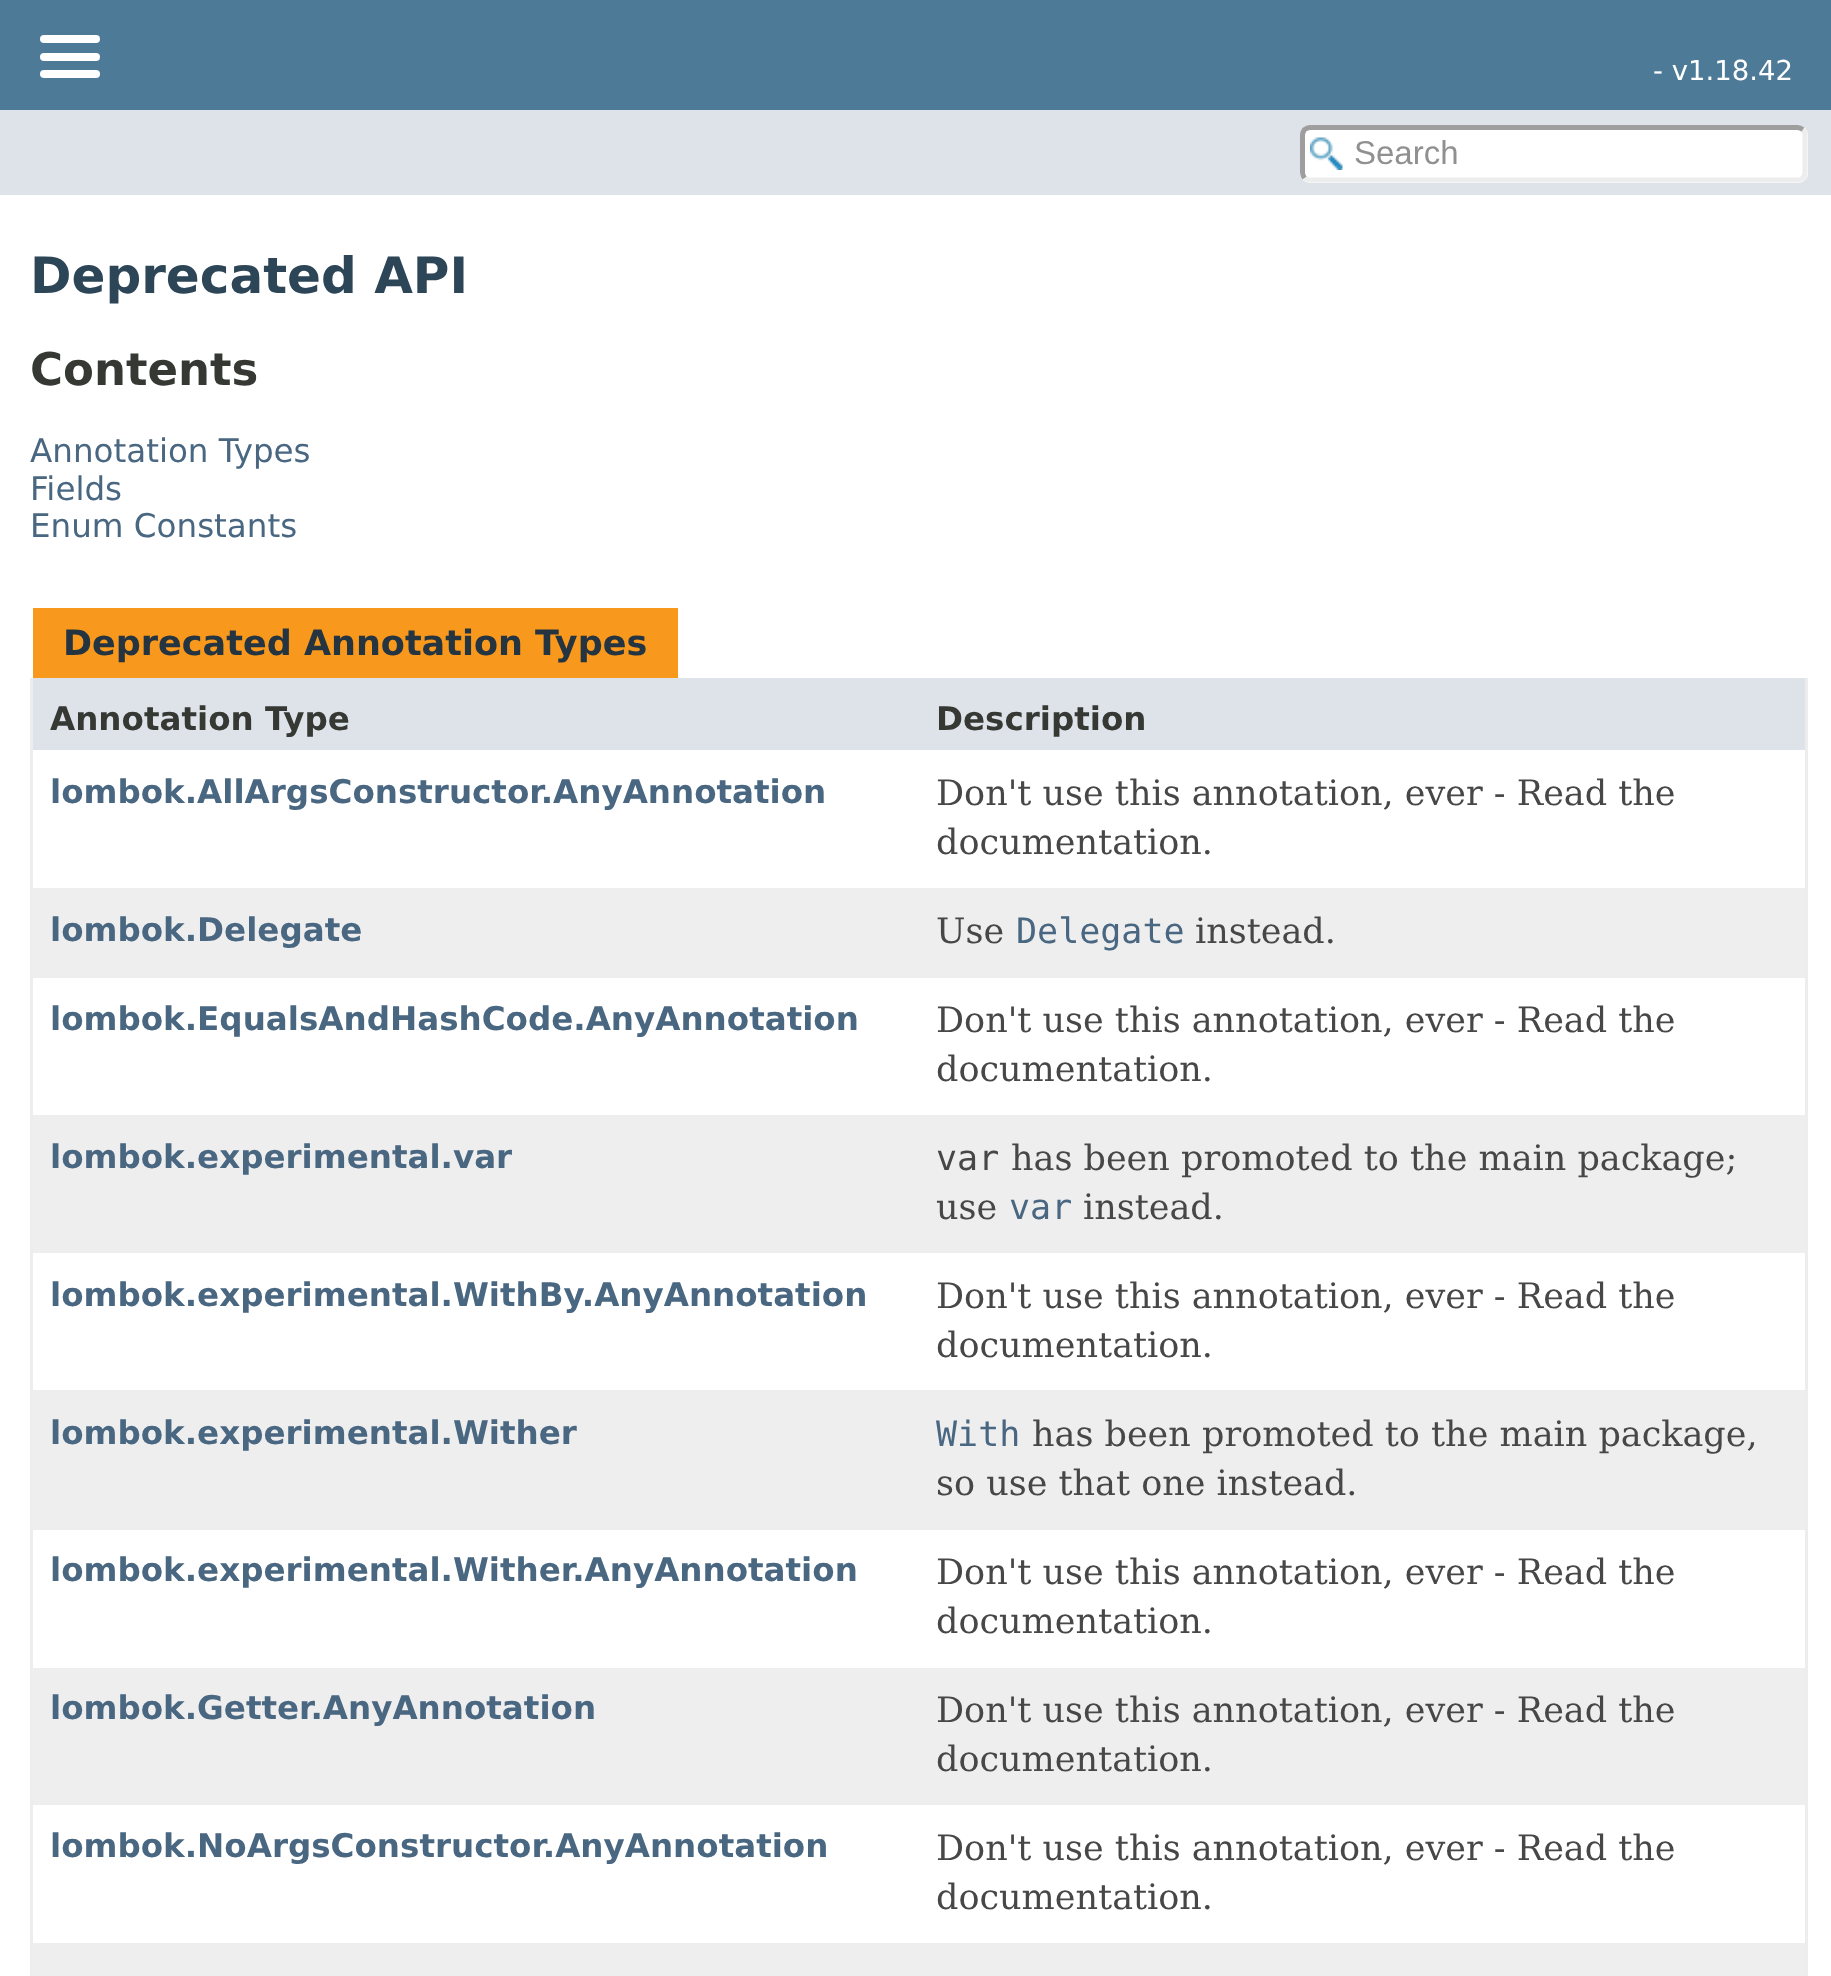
<svg xmlns="http://www.w3.org/2000/svg" width="1831" height="1976" viewBox="0 0 1831 1976">
  <rect width="100%" height="100%" fill="#ffffff"/>
  <rect x="0" y="0" width="1831" height="110" fill="#4d7a97"/>
  <rect x="40" y="35" width="60" height="8" rx="4" fill="#ffffff"/>
  <rect x="40" y="53" width="60" height="8" rx="4" fill="#ffffff"/>
  <rect x="40" y="70" width="60" height="8" rx="4" fill="#ffffff"/>
  <text x="1653" y="80" font-family="DejaVu Sans" font-size="27.5" fill="#ffffff">- v1.18.42</text>
  <rect x="0" y="110" width="1831" height="85" fill="#dee3e9"/>
  <rect x="1300" y="125" width="508" height="58" rx="10" fill="#ffffff"/>
  <image x="1310" y="137" width="33" height="33" href="img1.png"/>
  <path d="M1803 129.5C1804 131 1805 133 1805 135V172.5C1805 174.5 1804 176.5 1803 178C1801.5 179 1799.5 180 1797.5 180H1310C1308 180 1306 179 1304.5 178" fill="none" stroke="#ededed" stroke-width="5"/>
  <path d="M1304.5 178C1303.5 176.5 1302.5 174.5 1302.5 172.5V135C1302.5 133 1303.5 131 1304.5 129.5C1306 128.5 1308 127.5 1310 127.5H1797.5C1799.5 127.5 1801.5 128.5 1803 129.5" fill="none" stroke="#9e9e9e" stroke-width="5"/>
  <text x="1354" y="164" font-family="Liberation Sans" font-size="33" fill="#909090">Search</text>
  <text x="30" y="293" font-family="DejaVu Sans" font-size="50" font-weight="bold" fill="#2c4557">Deprecated API</text>
  <text x="30" y="385" font-family="DejaVu Sans" font-size="45" font-weight="bold" fill="#353833">Contents</text>
  <text x="30" y="462" font-family="DejaVu Sans" font-size="32.55" fill="#4a6782">Annotation Types</text>
  <text x="30" y="500" font-family="DejaVu Sans" font-size="32.55" fill="#4a6782">Fields</text>
  <text x="30" y="537" font-family="DejaVu Sans" font-size="32.55" fill="#4a6782">Enum Constants</text>
  <rect x="33" y="608" width="645" height="70" fill="#f8981d"/>
  <text x="63" y="655" font-family="DejaVu Sans" font-size="35" font-weight="bold" fill="#253441">Deprecated Annotation Types</text>
  <rect x="1805" y="678" width="3" height="1298" fill="#ededed"/>
  <rect x="30" y="678" width="3" height="1298" fill="#ededed"/>
  <rect x="33" y="678" width="1772" height="72" fill="#dee3e9"/>
  <text x="50" y="730" font-family="DejaVu Sans" font-size="32.55" font-weight="bold" fill="#353833">Annotation Type</text>
  <text x="936" y="730" font-family="DejaVu Sans" font-size="32.55" font-weight="bold" fill="#353833">Description</text>
  <text x="50" y="803" font-family="DejaVu Sans" font-size="32.55" font-weight="bold" fill="#4a6782">lombok.AllArgsConstructor.AnyAnnotation</text>
  <text x="936" y="805" font-family="DejaVu Serif" font-size="35" fill="#474747">Don't use this annotation, ever - Read the</text>
  <text x="936" y="854" font-family="DejaVu Serif" font-size="35" fill="#474747">documentation.</text>
  <rect x="33" y="888" width="1772" height="90" fill="#eeeeef"/>
  <text x="50" y="941" font-family="DejaVu Sans" font-size="32.55" font-weight="bold" fill="#4a6782">lombok.Delegate</text>
  <text x="936" y="943" font-family="DejaVu Serif" font-size="35" fill="#474747">Use</text>
  <text x="1016" y="943" font-family="DejaVu Sans Mono" font-size="35" fill="#4a6782">Delegate</text>
  <text x="1195" y="943" font-family="DejaVu Serif" font-size="35" fill="#474747">instead.</text>
  <text x="50" y="1030" font-family="DejaVu Sans" font-size="32.55" font-weight="bold" fill="#4a6782">lombok.EqualsAndHashCode.AnyAnnotation</text>
  <text x="936" y="1032" font-family="DejaVu Serif" font-size="35" fill="#474747">Don't use this annotation, ever - Read the</text>
  <text x="936" y="1081" font-family="DejaVu Serif" font-size="35" fill="#474747">documentation.</text>
  <rect x="33" y="1115" width="1772" height="138" fill="#eeeeef"/>
  <text x="50" y="1168" font-family="DejaVu Sans" font-size="32.55" font-weight="bold" fill="#4a6782">lombok.experimental.var</text>
  <text x="936" y="1170" font-family="DejaVu Sans Mono" font-size="35" fill="#474747">var</text>
  <text x="1011" y="1170" font-family="DejaVu Serif" font-size="35" fill="#474747">has been promoted to the main package;</text>
  <text x="936" y="1219" font-family="DejaVu Serif" font-size="35" fill="#474747">use</text>
  <text x="1009" y="1219" font-family="DejaVu Sans Mono" font-size="35" fill="#4a6782">var</text>
  <text x="1083" y="1219" font-family="DejaVu Serif" font-size="35" fill="#474747">instead.</text>
  <text x="50" y="1306" font-family="DejaVu Sans" font-size="32.55" font-weight="bold" fill="#4a6782">lombok.experimental.WithBy.AnyAnnotation</text>
  <text x="936" y="1308" font-family="DejaVu Serif" font-size="35" fill="#474747">Don't use this annotation, ever - Read the</text>
  <text x="936" y="1357" font-family="DejaVu Serif" font-size="35" fill="#474747">documentation.</text>
  <rect x="33" y="1390" width="1772" height="140" fill="#eeeeef"/>
  <text x="50" y="1444" font-family="DejaVu Sans" font-size="32.55" font-weight="bold" fill="#4a6782">lombok.experimental.Wither</text>
  <text x="936" y="1446" font-family="DejaVu Sans Mono" font-size="35" fill="#4a6782">With</text>
  <text x="1032" y="1446" font-family="DejaVu Serif" font-size="35" fill="#474747">has been promoted to the main package,</text>
  <text x="936" y="1495" font-family="DejaVu Serif" font-size="35" fill="#474747">so use that one instead.</text>
  <text x="50" y="1581" font-family="DejaVu Sans" font-size="32.55" font-weight="bold" fill="#4a6782">lombok.experimental.Wither.AnyAnnotation</text>
  <text x="936" y="1584" font-family="DejaVu Serif" font-size="35" fill="#474747">Don't use this annotation, ever - Read the</text>
  <text x="936" y="1633" font-family="DejaVu Serif" font-size="35" fill="#474747">documentation.</text>
  <rect x="33" y="1668" width="1772" height="137" fill="#eeeeef"/>
  <text x="50" y="1719" font-family="DejaVu Sans" font-size="32.55" font-weight="bold" fill="#4a6782">lombok.Getter.AnyAnnotation</text>
  <text x="936" y="1722" font-family="DejaVu Serif" font-size="35" fill="#474747">Don't use this annotation, ever - Read the</text>
  <text x="936" y="1771" font-family="DejaVu Serif" font-size="35" fill="#474747">documentation.</text>
  <text x="50" y="1857" font-family="DejaVu Sans" font-size="32.55" font-weight="bold" fill="#4a6782">lombok.NoArgsConstructor.AnyAnnotation</text>
  <text x="936" y="1860" font-family="DejaVu Serif" font-size="35" fill="#474747">Don't use this annotation, ever - Read the</text>
  <text x="936" y="1909" font-family="DejaVu Serif" font-size="35" fill="#474747">documentation.</text>
  <rect x="33" y="1943" width="1772" height="33" fill="#eeeeef"/>
</svg>
